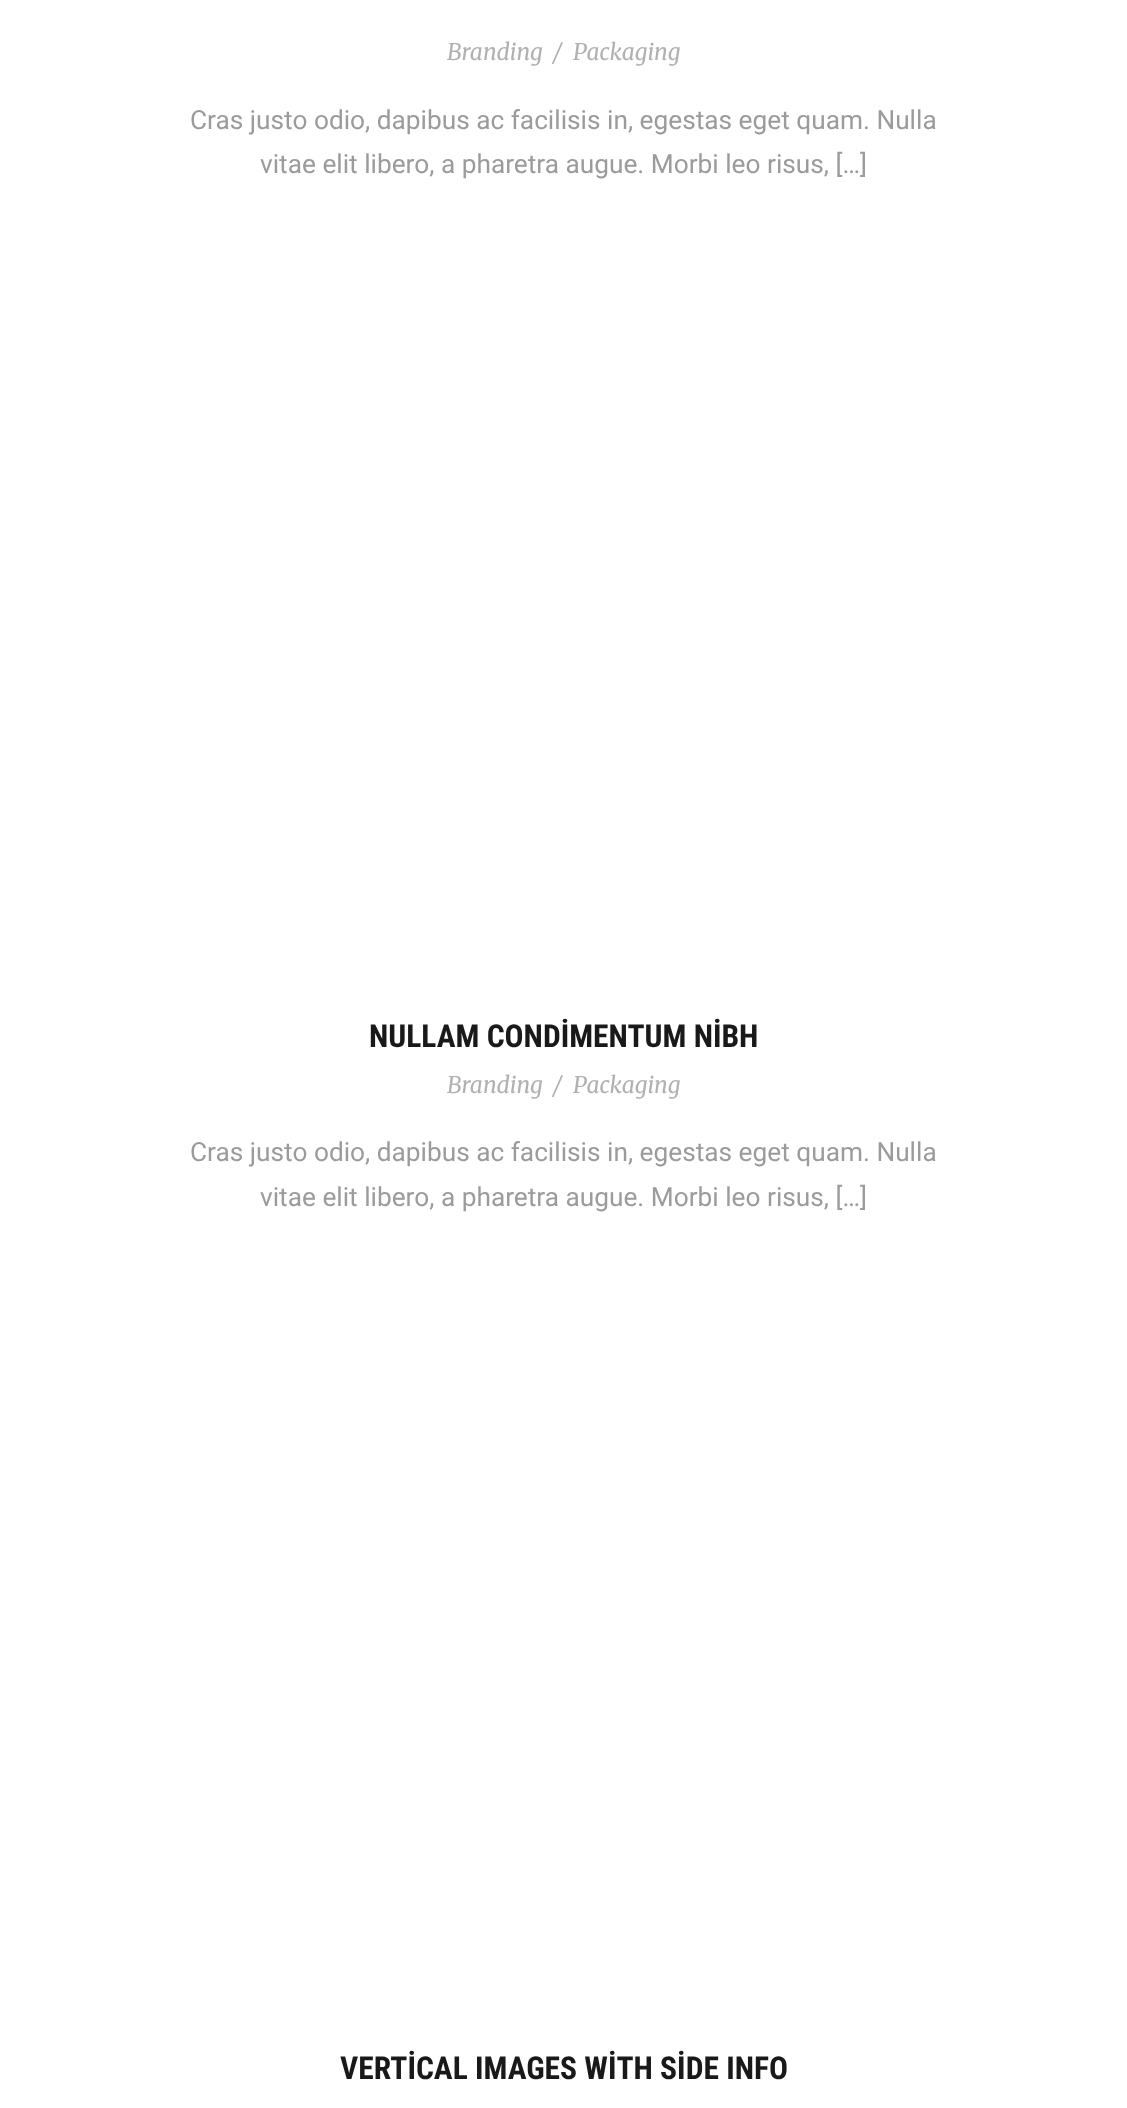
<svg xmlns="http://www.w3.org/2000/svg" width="1127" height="2108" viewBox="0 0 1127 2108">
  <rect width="100%" height="100%" fill="#ffffff"/>
  <text x="447" y="60" font-family="Merriweather" font-size="22.75" font-style="italic" fill="#b1b1b1">Branding</text>
  <text x="553" y="60" font-family="Merriweather" font-size="22.75" font-style="italic" fill="#b1b1b1">/</text>
  <text x="573" y="60" font-family="Merriweather" font-size="22.75" font-style="italic" fill="#b1b1b1">Packaging</text>
  <text x="190" y="129" font-family="Roboto" font-size="26.25" fill="#9b9b9b">Cras justo odio, dapibus ac facilisis in, egestas eget quam. Nulla</text>
  <text x="260" y="173" font-family="Roboto" font-size="26.25" fill="#9b9b9b">vitae elit libero, a pharetra augue. Morbi leo risus, […]</text>
  <text x="369" y="1047" font-family="Roboto Condensed" font-size="31.5" font-weight="bold" fill="#191919">NULLAM CONDİMENTUM NİBH</text>
  <text x="447" y="1093" font-family="Merriweather" font-size="22.75" font-style="italic" fill="#b1b1b1">Branding</text>
  <text x="553" y="1093" font-family="Merriweather" font-size="22.75" font-style="italic" fill="#b1b1b1">/</text>
  <text x="573" y="1093" font-family="Merriweather" font-size="22.75" font-style="italic" fill="#b1b1b1">Packaging</text>
  <text x="190" y="1161" font-family="Roboto" font-size="26.25" fill="#9b9b9b">Cras justo odio, dapibus ac facilisis in, egestas eget quam. Nulla</text>
  <text x="260" y="1206" font-family="Roboto" font-size="26.25" fill="#9b9b9b">vitae elit libero, a pharetra augue. Morbi leo risus, […]</text>
  <text x="340" y="2079" font-family="Roboto Condensed" font-size="31.5" font-weight="bold" fill="#191919">VERTİCAL IMAGES WİTH SİDE INFO</text>
</svg>
